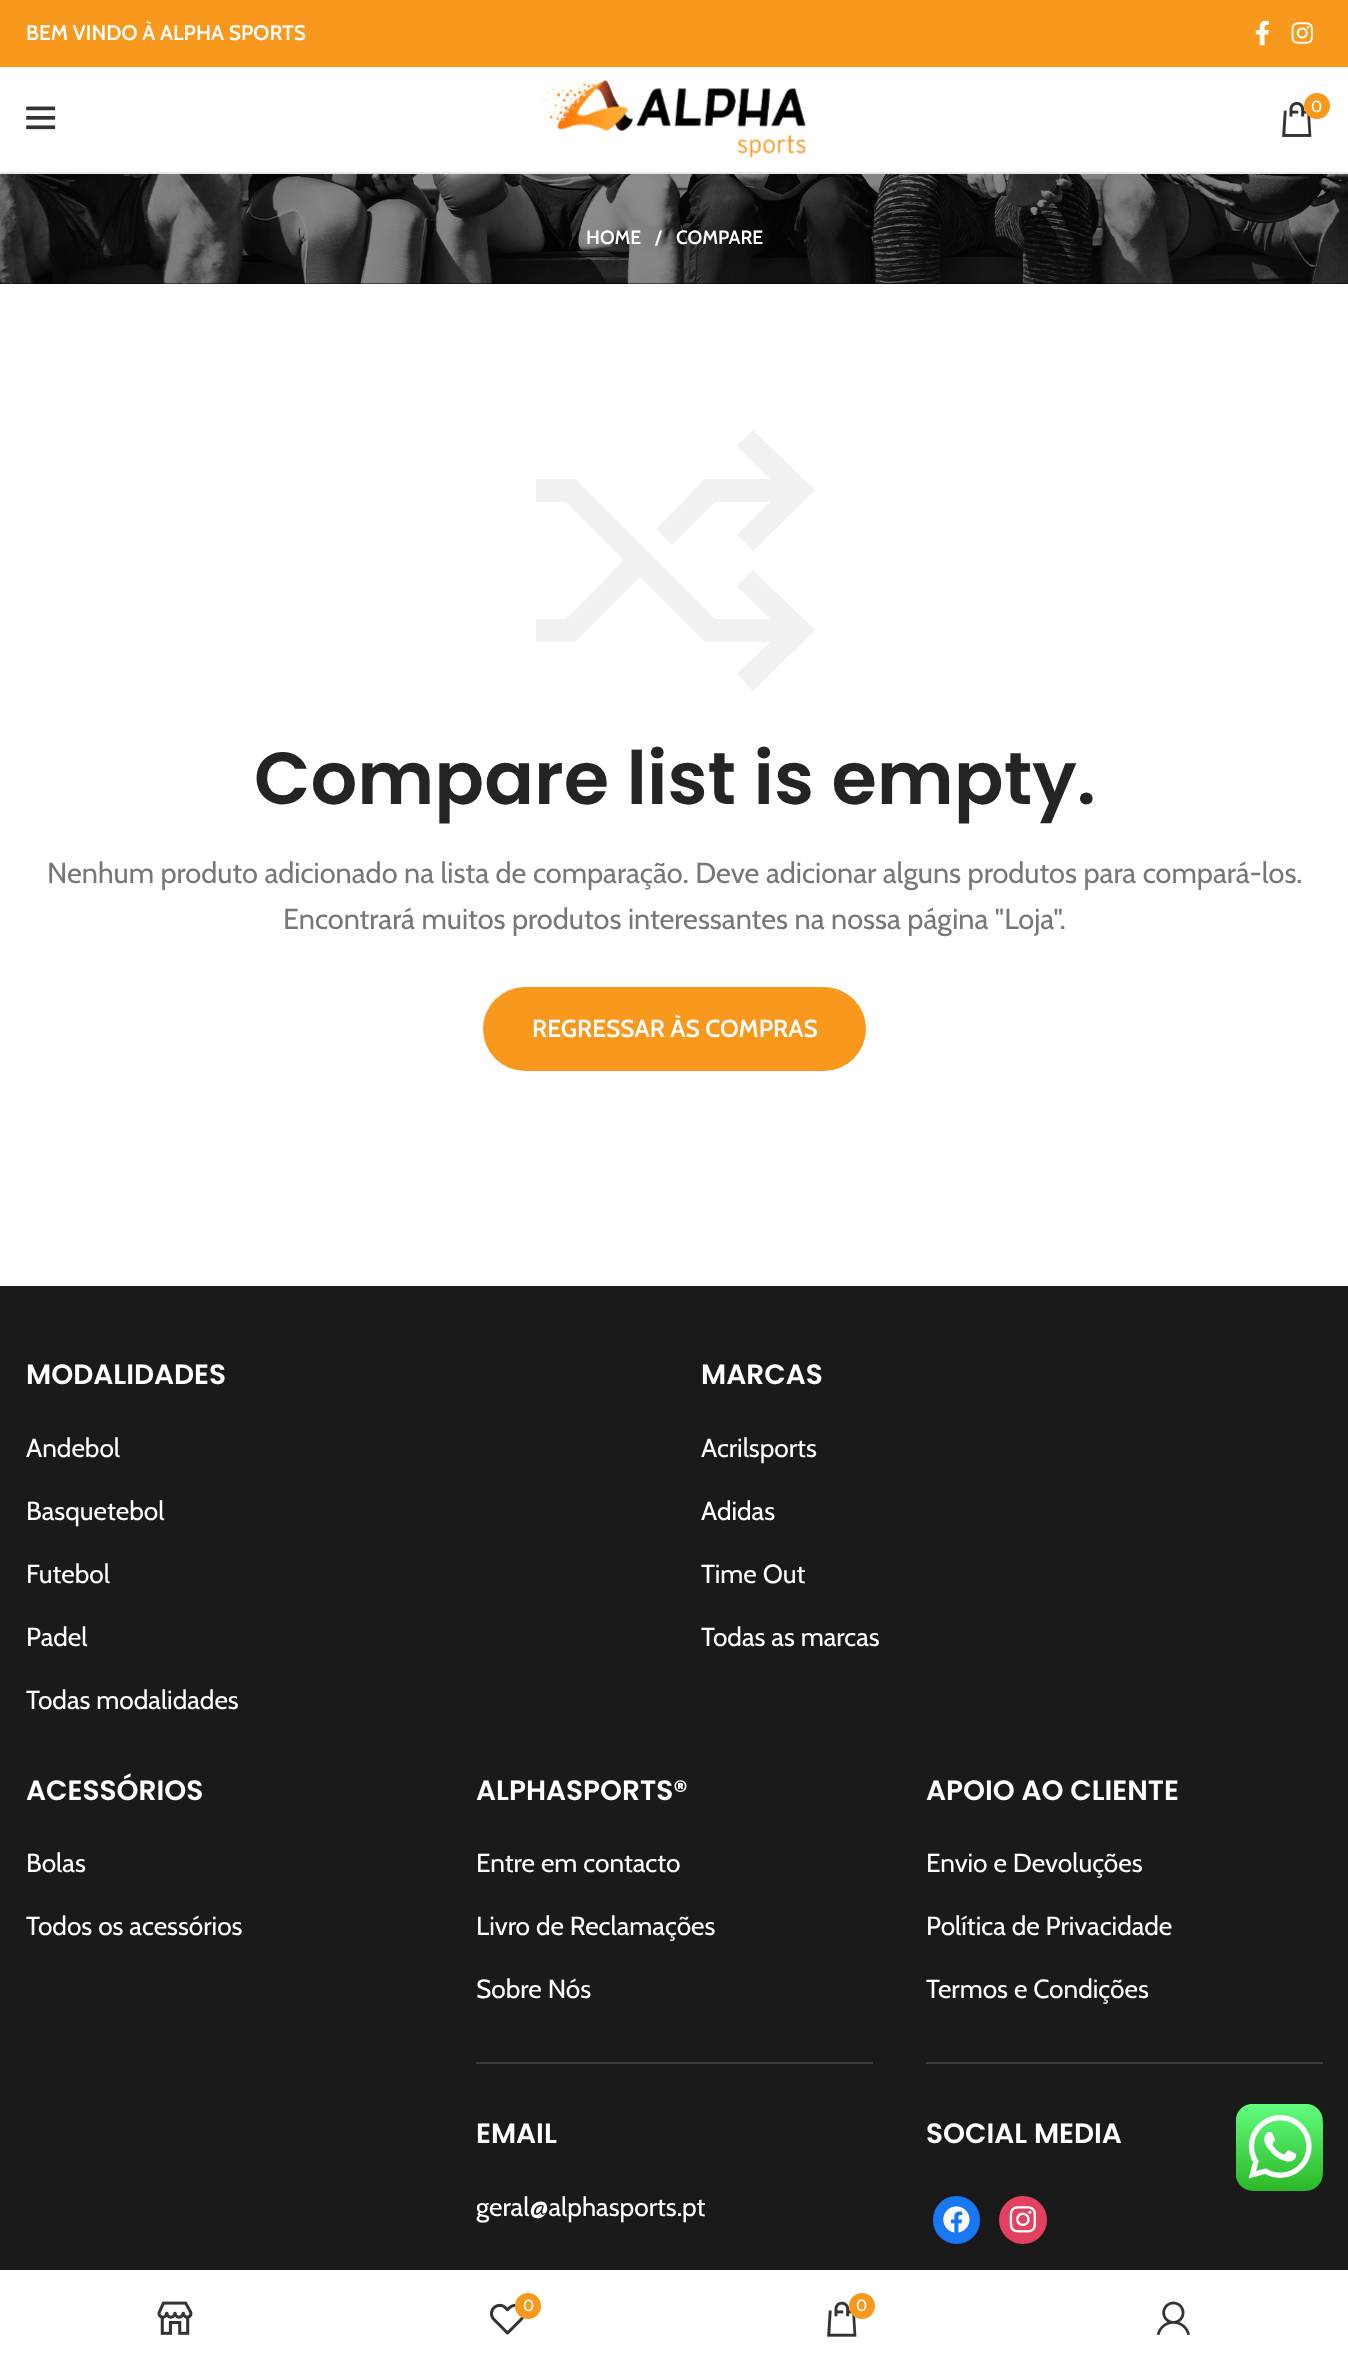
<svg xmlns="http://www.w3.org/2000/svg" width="1348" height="2365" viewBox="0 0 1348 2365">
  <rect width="100%" height="100%" fill="#ffffff"/>
  <rect x="0" y="0" width="1348" height="67" fill="#f8981d"/>
  <text x="26" y="40" font-family="Cabin" font-size="21" font-weight="600" fill="#ffffff">BEM VINDO À ALPHA SPORTS</text>
  <image x="1255" y="20" width="14" height="26" href="img1.png"/>
  <image x="1291" y="22" width="22" height="22" href="img2.png"/>
  <rect x="0" y="172" width="1348" height="2" fill="#e8e8e8"/>
  <image x="26" y="106" width="30" height="24" href="img3.png"/>
  <image x="542" y="79" width="264" height="79" href="img4.png"/>
  <image x="1282" y="101" width="30" height="36" href="img5.png"/>
  <circle cx="1317" cy="106" r="13" fill="#f8981d"/>
  <text x="1311" y="112" font-family="Cabin" font-size="16" fill="#ffffff">0</text>
  <rect x="0" y="283" width="1348" height="1" fill="#0a0a0a"/>
  <image x="0" y="174" width="1348" height="110" href="img6.png"/>
  <text x="586" y="244" font-family="Cabin" font-size="19.25" font-weight="600" fill="#ffffff">HOME</text>
  <text x="655" y="244" font-family="Cabin" font-size="19.25" font-weight="600" fill="#ffffff">/</text>
  <text x="676" y="244" font-family="Cabin" font-size="19.25" font-weight="600" fill="#ffffff">COMPARE</text>
  <path d="M715 502L672 545L656 529L705 479H770L737 446L753 430L815 490L753 551L737 535L770 502ZM737 586L753 570L815 630L753 691L737 674L770 642H705L640 577L575 642H536V619H566L624 560L566 502H536V479H575L715 619H770Z" fill="#f1f1f1"/>
  <text x="254" y="804" font-family="Poppins" font-size="73.5" font-weight="600" fill="#242424">Compare list is empty.</text>
  <text x="47" y="883" font-family="Cabin" font-size="28.9" fill="#777777">Nenhum produto adicionado na lista de comparação. Deve adicionar alguns produtos para compará-los.</text>
  <text x="283" y="929" font-family="Cabin" font-size="28.9" fill="#777777">Encontrará muitos produtos interessantes na nossa página "Loja".</text>
  <rect x="483" y="987" width="383" height="84" rx="42" fill="#f8981d"/>
  <text x="532" y="1037" font-family="Cabin" font-size="24.5" font-weight="600" fill="#ffffff">REGRESSAR ÀS COMPRAS</text>
  <rect x="0" y="1286" width="1348" height="984" fill="#1a1a1a"/>
  <text x="26" y="1384" font-family="Poppins" font-size="28" font-weight="600" fill="#ffffff">MODALIDADES</text>
  <text x="26" y="1457" font-family="Cabin" font-size="26.25" fill="#ffffff">Andebol</text>
  <text x="26" y="1520" font-family="Cabin" font-size="26.25" fill="#ffffff">Basquetebol</text>
  <text x="26" y="1583" font-family="Cabin" font-size="26.25" fill="#ffffff">Futebol</text>
  <text x="26" y="1646" font-family="Cabin" font-size="26.25" fill="#ffffff">Padel</text>
  <text x="26" y="1709" font-family="Cabin" font-size="26.25" fill="#ffffff">Todas modalidades</text>
  <text x="701" y="1384" font-family="Poppins" font-size="28" font-weight="600" fill="#ffffff">MARCAS</text>
  <text x="701" y="1457" font-family="Cabin" font-size="26.25" fill="#ffffff">Acrilsports</text>
  <text x="701" y="1520" font-family="Cabin" font-size="26.25" fill="#ffffff">Adidas</text>
  <text x="701" y="1583" font-family="Cabin" font-size="26.25" fill="#ffffff">Time Out</text>
  <text x="701" y="1646" font-family="Cabin" font-size="26.25" fill="#ffffff">Todas as marcas</text>
  <text x="26" y="1800" font-family="Poppins" font-size="28" font-weight="600" fill="#ffffff">ACESSÓRIOS</text>
  <text x="26" y="1872" font-family="Cabin" font-size="26.25" fill="#ffffff">Bolas</text>
  <text x="26" y="1935" font-family="Cabin" font-size="26.25" fill="#ffffff">Todos os acessórios</text>
  <rect x="476" y="2062" width="397" height="2" fill="#3c3c3c"/>
  <text x="476" y="1800" font-family="Poppins" font-size="28" font-weight="600" fill="#ffffff">ALPHASPORTS®</text>
  <text x="476" y="1872" font-family="Cabin" font-size="26.25" fill="#ffffff">Entre em contacto</text>
  <text x="476" y="1935" font-family="Cabin" font-size="26.25" fill="#ffffff">Livro de Reclamações</text>
  <text x="476" y="1998" font-family="Cabin" font-size="26.25" fill="#ffffff">Sobre Nós</text>
  <text x="476" y="2143" font-family="Poppins" font-size="28" font-weight="600" fill="#ffffff">EMAIL</text>
  <text x="476" y="2216" font-family="Cabin" font-size="26.25" fill="#ffffff">geral@alphasports.pt</text>
  <rect x="926" y="2062" width="397" height="2" fill="#3c3c3c"/>
  <text x="926" y="1800" font-family="Poppins" font-size="28" font-weight="600" fill="#ffffff">APOIO AO CLIENTE</text>
  <text x="926" y="1872" font-family="Cabin" font-size="26.25" fill="#ffffff">Envio e Devoluções</text>
  <text x="926" y="1935" font-family="Cabin" font-size="26.25" fill="#ffffff">Política de Privacidade</text>
  <text x="926" y="1998" font-family="Cabin" font-size="26.25" fill="#ffffff">Termos e Condições</text>
  <text x="926" y="2143" font-family="Poppins" font-size="28" font-weight="600" fill="#ffffff">SOCIAL MEDIA</text>
  <rect x="933" y="2196" width="47" height="48" rx="23.5" fill="#1877f2"/>
  <image x="943" y="2206" width="27" height="27" href="img7.png"/>
  <circle cx="1023" cy="2220" r="24" fill="#e4405f"/>
  <image x="1009" y="2206" width="28" height="27" href="img8.png"/>
  <image x="1236" y="2104" width="87" height="87" href="img9.png"/>
  <image x="157" y="2301" width="36" height="34" href="img10.png"/>
  <image x="490" y="2303" width="34" height="32" href="img11.png"/>
  <circle cx="528" cy="2306" r="13" fill="#f8981d"/>
  <text x="523" y="2311" font-family="Cabin" font-size="16" fill="#ffffff">0</text>
  <image x="827" y="2301" width="30" height="36" href="img12.png"/>
  <circle cx="862" cy="2306" r="13" fill="#f8981d"/>
  <text x="856" y="2311" font-family="Cabin" font-size="16" fill="#ffffff">0</text>
  <image x="1156" y="2301" width="34" height="34" href="img13.png"/>
</svg>
